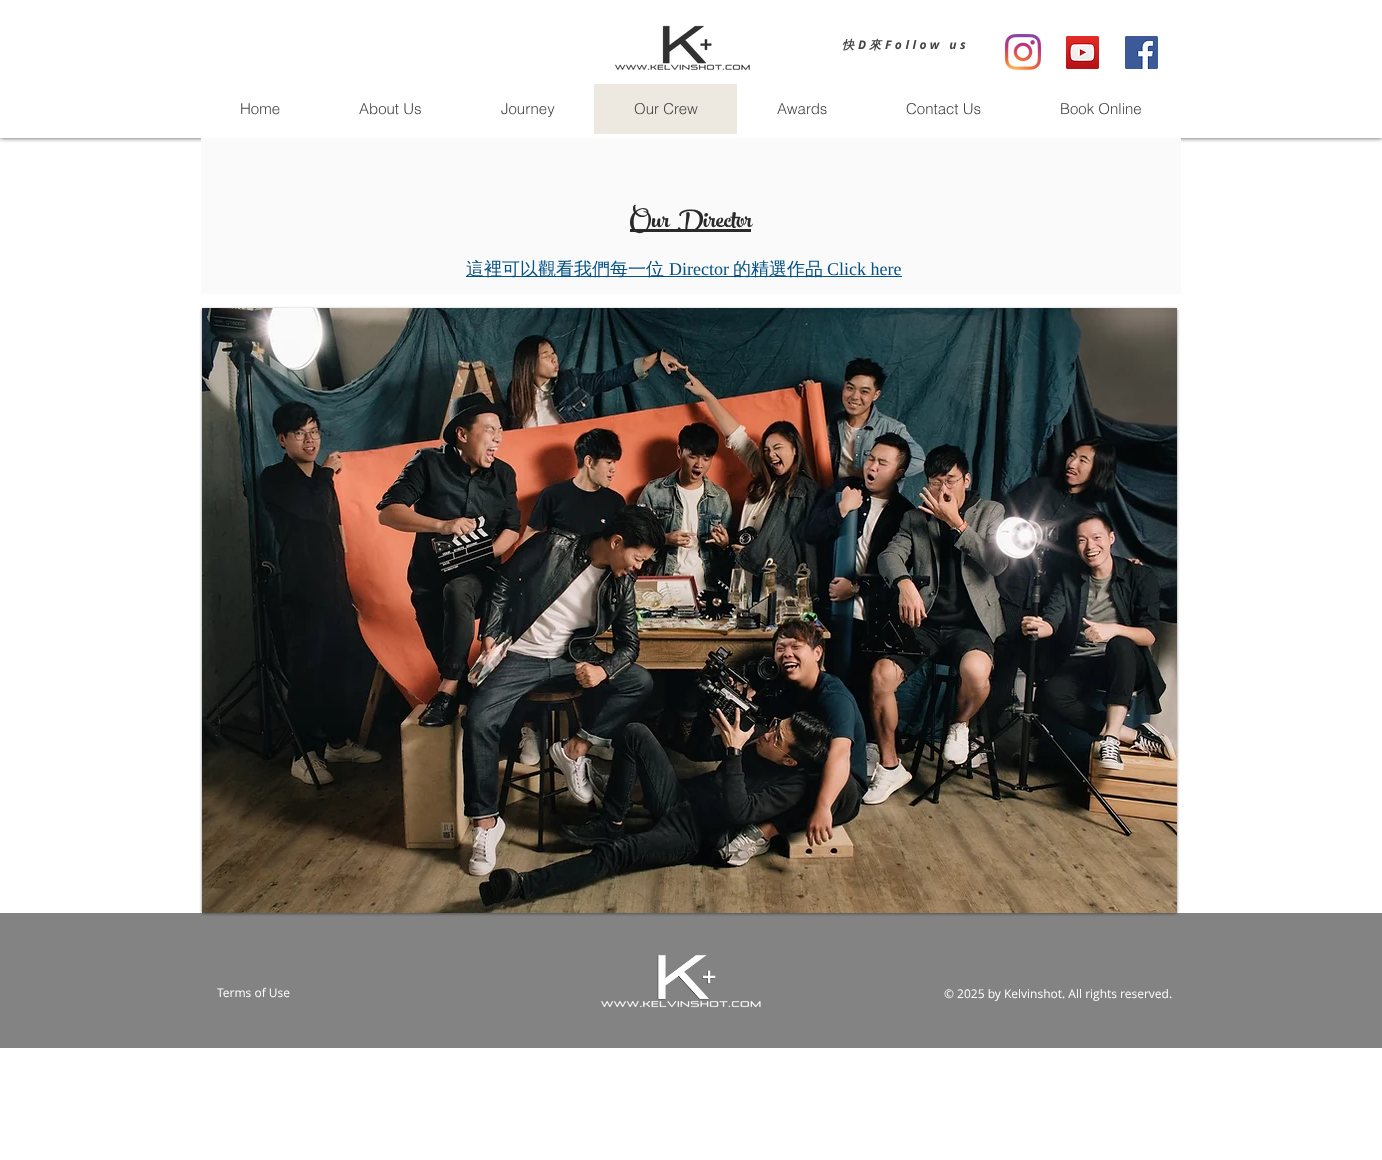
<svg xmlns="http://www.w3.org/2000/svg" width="1382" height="1160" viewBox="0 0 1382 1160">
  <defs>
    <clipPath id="clip1"><rect x="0" y="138" width="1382" height="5"/></clipPath>
    <filter id="blur1" x="-50%" y="-200%" width="200%" height="500%"><feGaussianBlur stdDeviation="2.5"/></filter>
    <filter id="blur2" x="-50%" y="-200%" width="200%" height="500%"><feGaussianBlur stdDeviation="1.5"/></filter>
  </defs>
  <rect width="100%" height="100%" fill="#ffffff"/>
  <g clip-path="url(#clip1)">
    <rect x="0" y="0" width="1382" height="138" fill="#000000" fill-opacity="0.7" filter="url(#blur1)"/>
  </g>
  <image x="615" y="25" width="135" height="45" href="img1.png"/>
  <text x="842" y="49" font-family="WenQuanYi Zen Hei" font-size="12" font-weight="bold" font-style="italic" letter-spacing="3.5" fill="#444444">快</text>
  <text x="858" y="49" font-family="Open Sans" font-size="12" font-weight="bold" font-style="italic" letter-spacing="3.5" fill="#444444">D</text>
  <text x="869" y="49" font-family="WenQuanYi Zen Hei" font-size="12" font-weight="bold" font-style="italic" letter-spacing="3.5" fill="#444444">來</text>
  <text x="885" y="49" font-family="Open Sans" font-size="12" font-weight="bold" font-style="italic" letter-spacing="3.5" fill="#444444">Follow us</text>
  <image x="1005" y="34" width="36" height="36" href="img2.png"/>
  <image x="1066" y="36" width="33" height="33" href="img3.png"/>
  <image x="1125" y="36" width="33" height="33" href="img4.png"/>
  <text x="240" y="114" font-family="helvetica" font-size="15" font-weight="300" fill="#444444">Home</text>
  <text x="359" y="114" font-family="helvetica" font-size="15" font-weight="300" fill="#444444">About Us</text>
  <text x="501" y="114" font-family="helvetica" font-size="15" font-weight="300" fill="#444444">Journey</text>
  <rect x="594" y="84" width="143" height="50" fill="#ede9e1"/>
  <text x="634" y="114" font-family="helvetica" font-size="15" font-weight="300" fill="#444444">Our Crew</text>
  <text x="777" y="114" font-family="helvetica" font-size="15" font-weight="300" fill="#444444">Awards</text>
  <text x="906" y="114" font-family="helvetica" font-size="15" font-weight="300" fill="#444444">Contact Us</text>
  <text x="1060" y="114" font-family="helvetica" font-size="15" font-weight="300" fill="#444444">Book Online</text>
  <rect x="201" y="138" width="980" height="156" fill="#fafafa"/>
  <rect x="630" y="229" width="121" height="3" fill="#2a2a2a"/>
  <text x="630" y="227" font-family="'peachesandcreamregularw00'" font-size="35" fill="#2a2a2a" xml:space="preserve">Our  Director</text>
  <rect x="466" y="276" width="436" height="1" fill="#045184"/>
  <text x="466" y="275" font-family="WenQuanYi Zen Hei" font-size="18" font-weight="500" fill="#045184">這裡可以觀看我們每一位</text>
  <text x="669" y="275" font-family="Liberation Serif" font-size="18" fill="#045184">Director</text>
  <text x="733" y="275" font-family="WenQuanYi Zen Hei" font-size="18" font-weight="500" fill="#045184">的精選作品</text>
  <text x="827" y="275" font-family="Liberation Serif" font-size="18" fill="#045184">Click here</text>
  <rect x="202" y="309" width="975" height="605" fill="#000000" fill-opacity="0.5" filter="url(#blur2)"/>
  <image x="202" y="308" width="975" height="605" href="img5.png"/>
  <rect x="0" y="913" width="1382" height="135" fill="#303030" fill-opacity="0.6"/>
  <text x="217" y="997" font-family="Open Sans" font-size="12" fill="#ffffff">Terms of Use</text>
  <image x="601" y="954" width="160" height="54" href="img6.png"/>
  <text x="944" y="998" font-family="Open Sans" font-size="12" fill="#ffffff">© 2025 by Kelvinshot. All rights reserved.</text>
</svg>
